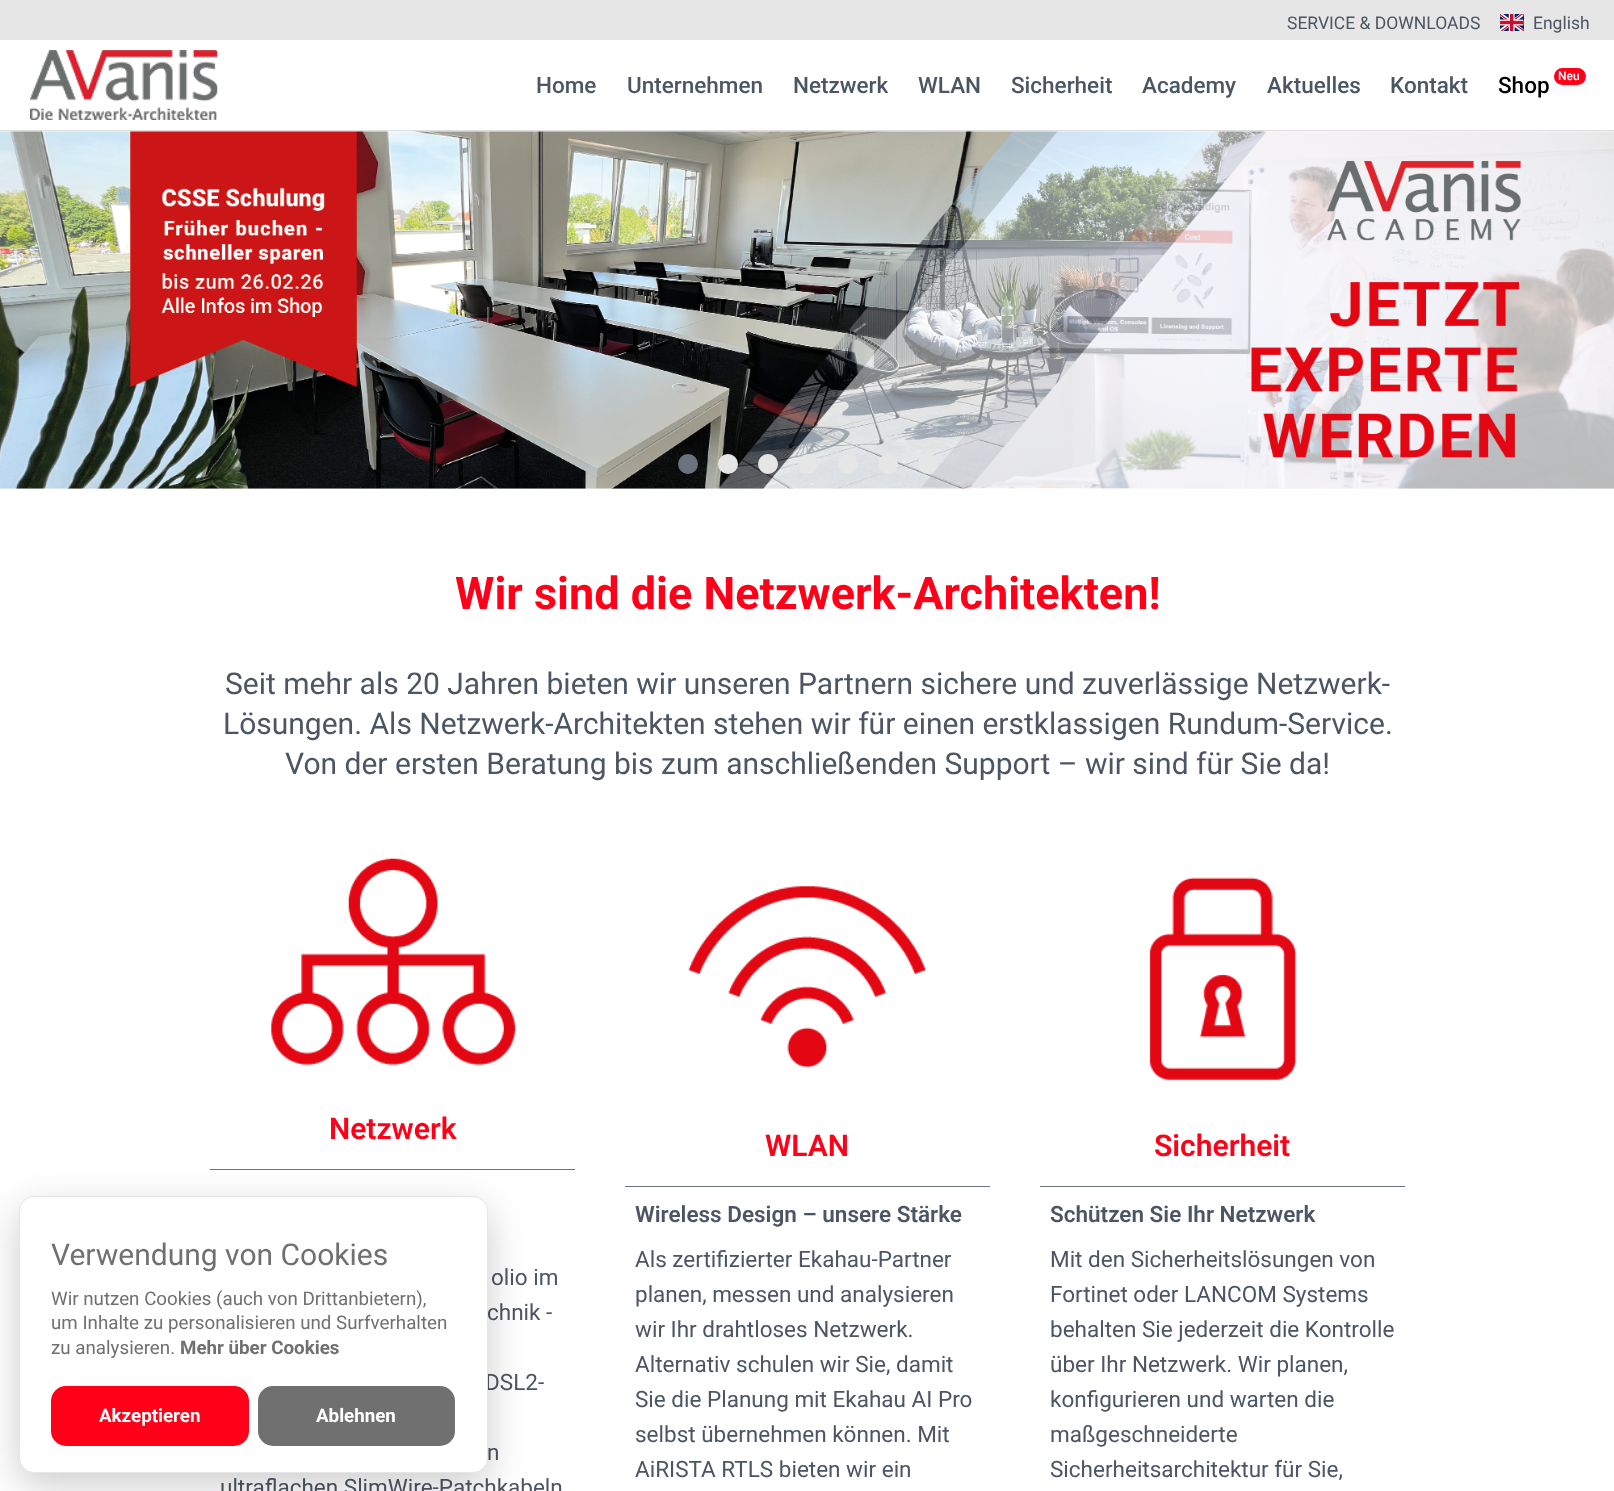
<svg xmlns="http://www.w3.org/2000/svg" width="1614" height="1491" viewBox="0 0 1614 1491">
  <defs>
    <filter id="blur1" x="-50%" y="-200%" width="200%" height="500%"><feGaussianBlur stdDeviation="4"/></filter>
    <filter id="blur2" x="-50%" y="-200%" width="200%" height="500%"><feGaussianBlur stdDeviation="19"/></filter>
  </defs>
  <rect width="100%" height="100%" fill="#ffffff"/>
  <rect x="0" y="0" width="1614" height="40" fill="#e6e6e6"/>
  <text x="1287" y="29" font-family="Roboto" font-size="17.5" fill="#4b5563">SERVICE &amp; DOWNLOADS</text>
  <image x="1500" y="14" width="24" height="17" href="img1.png"/>
  <text x="1533" y="29" font-family="Roboto" font-size="17.5" fill="#4b5563">English</text>
  <rect x="0" y="130" width="1614" height="1" fill="#dedede"/>
  <image x="30" y="50" width="188" height="70" href="img2.png"/>
  <text x="536" y="93" font-family="Roboto" font-size="22.5" font-weight="500" fill="#4b5563">Home</text>
  <text x="627" y="93" font-family="Roboto" font-size="22.5" font-weight="500" fill="#4b5563">Unternehmen</text>
  <text x="793" y="93" font-family="Roboto" font-size="22.5" font-weight="500" fill="#4b5563">Netzwerk</text>
  <text x="918" y="93" font-family="Roboto" font-size="22.5" font-weight="500" fill="#4b5563">WLAN</text>
  <text x="1011" y="93" font-family="Roboto" font-size="22.5" font-weight="500" fill="#4b5563">Sicherheit</text>
  <text x="1142" y="93" font-family="Roboto" font-size="22.5" font-weight="500" fill="#4b5563">Academy</text>
  <text x="1267" y="93" font-family="Roboto" font-size="22.5" font-weight="500" fill="#4b5563">Aktuelles</text>
  <text x="1390" y="93" font-family="Roboto" font-size="22.5" font-weight="500" fill="#4b5563">Kontakt</text>
  <text x="1498" y="93" font-family="Roboto" font-size="22.5" font-weight="500" fill="#000000">Shop</text>
  <rect x="1559" y="78" width="22" height="7" rx="3.5" fill="#000000" fill-opacity="0.1" filter="url(#blur1)"/>
  <rect x="1554" y="68" width="32" height="17" rx="8.5" fill="#ff0018"/>
  <text x="1558" y="80" font-family="Roboto" font-size="12" font-weight="500" fill="#ffffff">Neu</text>
  <image x="0" y="131" width="1614" height="358" href="img3.png"/>
  <circle cx="688" cy="464" r="10" fill="#6b7280"/>
  <circle cx="728" cy="464" r="10" fill="#e6e6e6"/>
  <circle cx="768" cy="464" r="10" fill="#e6e6e6"/>
  <circle cx="808" cy="464" r="10" fill="#e6e6e6"/>
  <circle cx="848" cy="464" r="10" fill="#e6e6e6"/>
  <circle cx="888" cy="464" r="10" fill="#e6e6e6"/>
  <circle cx="928" cy="464" r="10" fill="#e6e6e6"/>
  <text x="455" y="609" font-family="Roboto" font-size="45" font-weight="bold" fill="#ff0018">Wir sind die Netzwerk-Architekten!</text>
  <text x="225" y="694" font-family="Roboto" font-size="30" fill="#4b5563">Seit mehr als 20 Jahren bieten wir unseren Partnern sichere und zuverlässige Netzwerk-</text>
  <text x="223" y="734" font-family="Roboto" font-size="30" fill="#4b5563">Lösungen. Als Netzwerk-Architekten stehen wir für einen erstklassigen Rundum-Service.</text>
  <text x="285" y="774" font-family="Roboto" font-size="30" fill="#4b5563">Von der ersten Beratung bis zum anschließenden Support – wir sind für Sie da!</text>
  <image x="271" y="858" width="245" height="208" href="img4.png"/>
  <text x="329" y="1139" font-family="Roboto" font-size="30" font-weight="600" fill="#ff0018">Netzwerk</text>
  <rect x="210" y="1169" width="365" height="1" fill="#6b7280"/>
  <text x="491" y="1285" font-family="Roboto" font-size="22.5" fill="#4b5563">olio im</text>
  <text x="487" y="1320" font-family="Roboto" font-size="22.5" fill="#4b5563">chnik -</text>
  <text x="485" y="1390" font-family="Roboto" font-size="22.5" fill="#4b5563">DSL2-</text>
  <text x="487" y="1460" font-family="Roboto" font-size="22.5" fill="#4b5563">n</text>
  <text x="220" y="1495" font-family="Roboto" font-size="22.5" fill="#4b5563">ultraflachen SlimWire-Patchkabeln</text>
  <image x="688" y="886" width="239" height="182" href="img5.png"/>
  <text x="765" y="1156" font-family="Roboto" font-size="30" font-weight="600" fill="#ff0018">WLAN</text>
  <rect x="625" y="1186" width="365" height="1" fill="#6b7280"/>
  <text x="635" y="1222" font-family="Roboto" font-size="22.5" font-weight="600" fill="#4b5563">Wireless Design – unsere Stärke</text>
  <text x="635" y="1267" font-family="Roboto" font-size="22.5" fill="#4b5563">Als zertifizierter Ekahau-Partner</text>
  <text x="635" y="1302" font-family="Roboto" font-size="22.5" fill="#4b5563">planen, messen und analysieren</text>
  <text x="635" y="1337" font-family="Roboto" font-size="22.5" fill="#4b5563">wir Ihr drahtloses Netzwerk.</text>
  <text x="635" y="1372" font-family="Roboto" font-size="22.5" fill="#4b5563">Alternativ schulen wir Sie, damit</text>
  <text x="635" y="1407" font-family="Roboto" font-size="22.5" fill="#4b5563">Sie die Planung mit Ekahau AI Pro</text>
  <text x="635" y="1442" font-family="Roboto" font-size="22.5" fill="#4b5563">selbst übernehmen können. Mit</text>
  <text x="635" y="1477" font-family="Roboto" font-size="22.5" fill="#4b5563">AiRISTA RTLS bieten wir ein</text>
  <image x="1149" y="877" width="148" height="204" href="img6.png"/>
  <text x="1154" y="1156" font-family="Roboto" font-size="30" font-weight="600" fill="#ff0018">Sicherheit</text>
  <rect x="1040" y="1186" width="365" height="1" fill="#6b7280"/>
  <text x="1050" y="1222" font-family="Roboto" font-size="22.5" font-weight="600" fill="#4b5563">Schützen Sie Ihr Netzwerk</text>
  <text x="1050" y="1267" font-family="Roboto" font-size="22.5" fill="#4b5563">Mit den Sicherheitslösungen von</text>
  <text x="1050" y="1302" font-family="Roboto" font-size="22.5" fill="#4b5563">Fortinet oder LANCOM Systems</text>
  <text x="1050" y="1337" font-family="Roboto" font-size="22.5" fill="#4b5563">behalten Sie jederzeit die Kontrolle</text>
  <text x="1050" y="1372" font-family="Roboto" font-size="22.5" fill="#4b5563">über Ihr Netzwerk. Wir planen,</text>
  <text x="1050" y="1407" font-family="Roboto" font-size="22.5" fill="#4b5563">konfigurieren und warten die</text>
  <text x="1050" y="1442" font-family="Roboto" font-size="22.5" fill="#4b5563">maßgeschneiderte</text>
  <text x="1050" y="1477" font-family="Roboto" font-size="22.5" fill="#4b5563">Sicherheitsarchitektur für Sie,</text>
  <rect x="19" y="1209" width="469" height="276" rx="15" fill="#020203" fill-opacity="0.2" filter="url(#blur2)"/>
  <rect x="19.5" y="1196.5" width="468" height="276" rx="14.5" fill="#ffffff" stroke="#e6e6e6"/>
  <text x="51" y="1265" font-family="Roboto" font-size="30" fill="#707070">Verwendung von Cookies</text>
  <text x="51" y="1305" font-family="Roboto" font-size="18.75" fill="#707070">Wir nutzen Cookies (auch von Drittanbietern),</text>
  <text x="51" y="1329" font-family="Roboto" font-size="18.75" fill="#707070">um Inhalte zu personalisieren und Surfverhalten</text>
  <text x="51" y="1354" font-family="Roboto" font-size="18.75" fill="#707070">zu analysieren.</text>
  <text x="180" y="1354" font-family="Roboto" font-size="18.75" font-weight="bold" fill="#707070">Mehr über Cookies</text>
  <rect x="51" y="1386" width="198" height="60" rx="15" fill="#ff0018"/>
  <text x="99" y="1422" font-family="Roboto" font-size="18.75" font-weight="bold" fill="#ffffff">Akzeptieren</text>
  <rect x="258" y="1386" width="197" height="60" rx="15" fill="#707070"/>
  <text x="316" y="1422" font-family="Roboto" font-size="18.75" font-weight="bold" fill="#ffffff">Ablehnen</text>
</svg>
